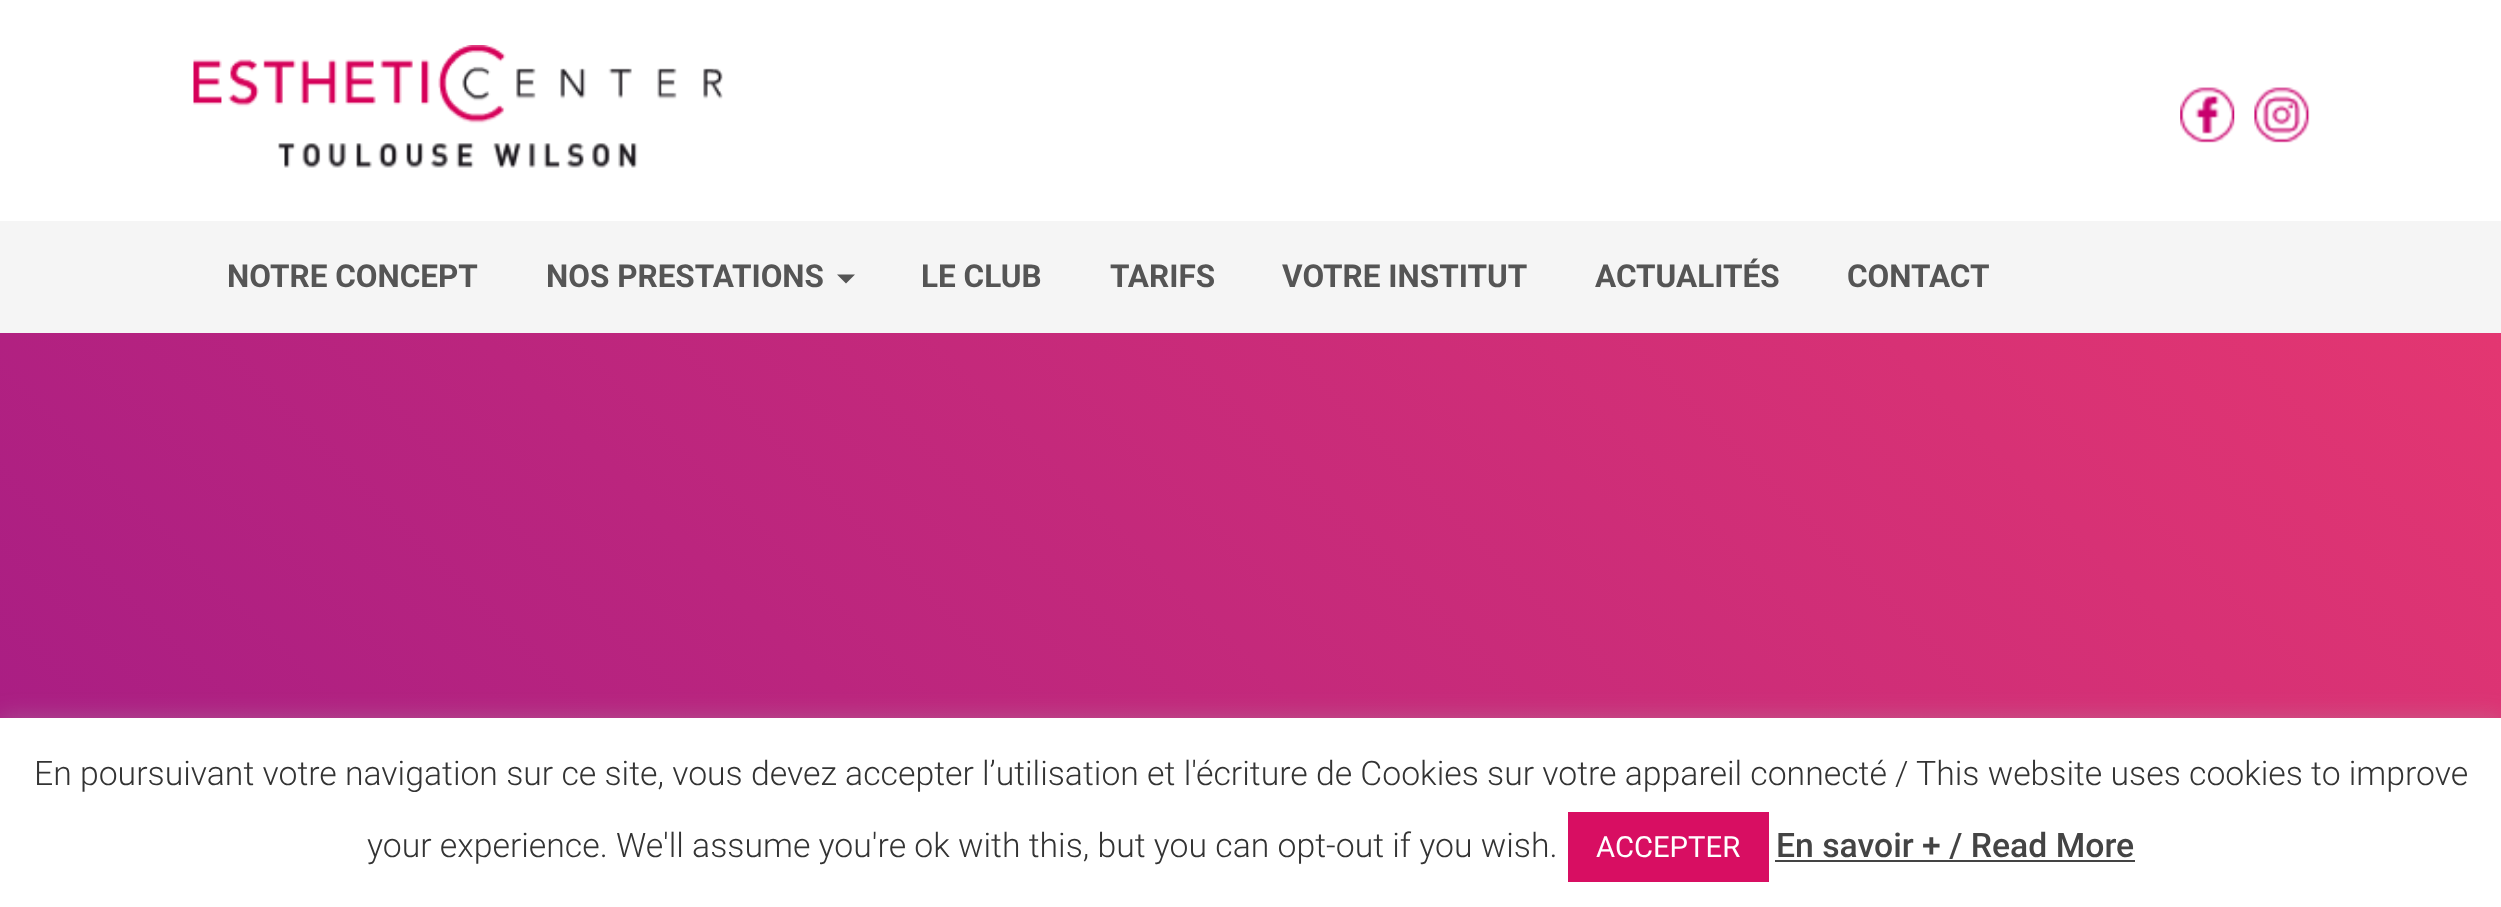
<svg xmlns="http://www.w3.org/2000/svg" width="2501" height="907" viewBox="0 0 2501 907">
  <defs>
    <linearGradient id="g1" gradientUnits="userSpaceOnUse" x1="424" y1="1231" x2="2078" y2="-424"><stop offset="0" stop-color="#a81d84"/><stop offset="1" stop-color="#ea396f"/></linearGradient>
    <filter id="blur1" x="-50%" y="-200%" width="200%" height="500%"><feGaussianBlur stdDeviation="11"/></filter>
  </defs>
  <rect width="100%" height="100%" fill="#ffffff"/>
  <rect x="0" y="221" width="2501" height="112" fill="#f5f5f5"/>
  <image x="193" y="45" width="530" height="123" href="img1.png"/>
  <image x="2180" y="87" width="55" height="56" href="img2.png"/>
  <image x="2254" y="87" width="56" height="56" href="img3.png"/>
  <text x="227" y="287" font-family="Roboto" font-size="31.5" font-weight="bold" fill="#555555">NOTRE CONCEPT</text>
  <text x="546" y="287" font-family="Roboto" font-size="31.5" font-weight="bold" fill="#555555">NOS PRESTATIONS</text>
  <path d="M837 274.5H855L846 283.5Z" fill="#555555"/>
  <text x="921" y="287" font-family="Roboto" font-size="31.5" font-weight="bold" fill="#555555">LE CLUB</text>
  <text x="1110" y="287" font-family="Roboto" font-size="31.5" font-weight="bold" fill="#555555">TARIFS</text>
  <text x="1282" y="287" font-family="Roboto" font-size="31.5" font-weight="bold" fill="#555555">VOTRE INSTITUT</text>
  <text x="1595" y="287" font-family="Roboto" font-size="31.5" font-weight="bold" fill="#555555">ACTUALITÉS</text>
  <text x="1847" y="287" font-family="Roboto" font-size="31.5" font-weight="bold" fill="#555555">CONTACT</text>
  <rect x="0" y="333" width="2501" height="385" fill="url(#g1)"/>
  <rect x="0" y="716" width="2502" height="191" fill="#acabab" fill-opacity="0.3" filter="url(#blur1)"/>
  <rect x="0" y="718" width="2501" height="189" fill="#ffffff"/>
  <text x="34" y="785" font-family="Roboto" font-size="33.75" font-weight="300" fill="#333333">En poursuivant votre navigation sur ce site, vous devez accepter l’utilisation et l'écriture de Cookies sur votre appareil connecté / This website uses cookies to improve</text>
  <text x="367" y="857" font-family="Roboto" font-size="33.75" font-weight="300" fill="#333333">your experience. We'll assume you're ok with this, but you can opt-out if you wish.</text>
  <rect x="1568" y="812" width="201" height="70" fill="#d80e62"/>
  <text x="1596" y="857" font-family="Roboto" font-size="29.25" fill="#ffffff">ACCEPTER</text>
  <text x="1776" y="857" font-family="Roboto" font-size="33.75" font-weight="500" fill="#444444">En savoir + / Read More</text>
  <rect x="1775" y="860" width="360" height="2" fill="#444444"/>
</svg>
